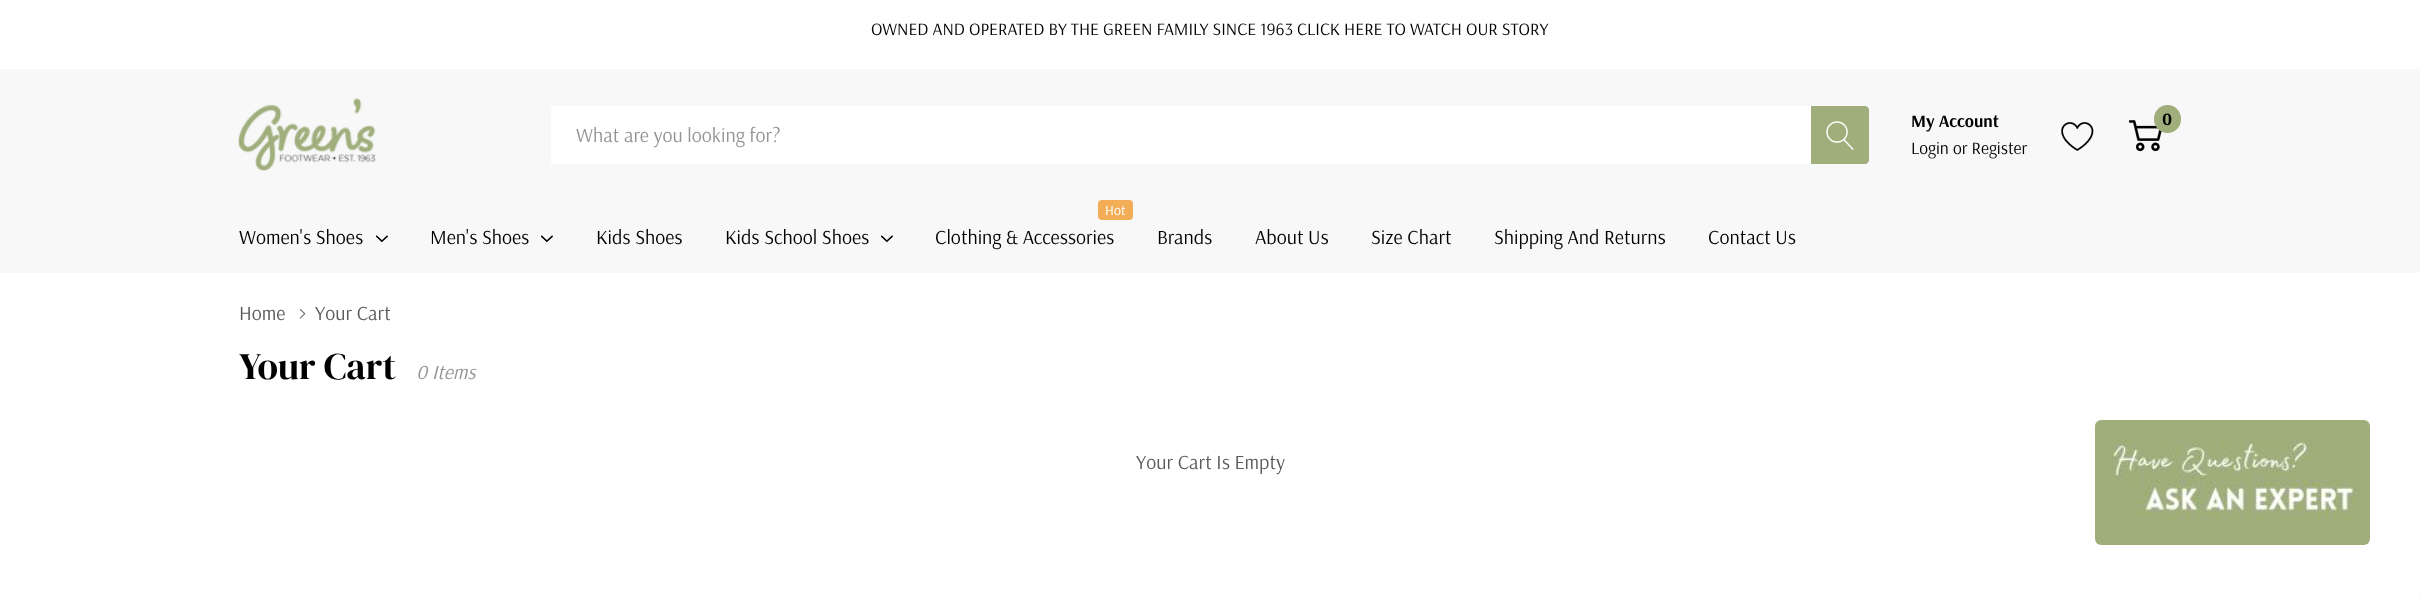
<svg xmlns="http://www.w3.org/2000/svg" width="2420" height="595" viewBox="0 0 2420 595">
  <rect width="100%" height="100%" fill="#ffffff"/>
  <rect x="0" y="69" width="2420" height="204" fill="#f8f8f8"/>
  <text x="871" y="35" font-family="Arsenal" font-size="17.5" fill="#000000">OWNED AND OPERATED BY THE GREEN FAMILY SINCE 1963 CLICK HERE TO WATCH OUR STORY</text>
  <image x="238" y="98" width="138" height="74" href="img1.png"/>
  <rect x="551" y="106" width="1260" height="58" fill="#ffffff"/>
  <text x="576" y="142" font-family="Arsenal" font-size="20" fill="#949494">What are you looking for?</text>
  <path d="M1811.5 106.5H1865C1867 106.5 1868.5 108 1868.5 110V160C1868.5 162 1867 163.5 1865 163.5H1811.5Z" fill="#9fae7b" stroke="#9fae7b"/>
  <image x="1826" y="121" width="28" height="29" href="img2.png"/>
  <text x="1911" y="127" font-family="Arsenal" font-size="17.5" font-weight="bold" fill="#000000">My Account</text>
  <text x="1911" y="154" font-family="Arsenal" font-size="17.5" fill="#000000">Login</text>
  <text x="1953" y="154" font-family="Arsenal" font-size="17.5" fill="#000000">or Register</text>
  <image x="2061" y="122" width="33" height="29" href="img3.png"/>
  <image x="2129" y="120" width="33" height="32" href="img4.png"/>
  <rect x="2154" y="105" width="27" height="28" rx="13.5" fill="#9fae7b"/>
  <text x="2162" y="125" font-family="Arsenal" font-size="17.5" font-weight="bold" fill="#000000">0</text>
  <text x="239" y="244" font-family="Arsenal" font-size="20" fill="#000000">Women's Shoes</text>
  <image x="376" y="235" width="12" height="8" href="img5.png"/>
  <text x="430" y="244" font-family="Arsenal" font-size="20" fill="#000000">Men's Shoes</text>
  <image x="541" y="235" width="12" height="8" href="img5.png"/>
  <text x="596" y="244" font-family="Arsenal" font-size="20" fill="#000000">Kids Shoes</text>
  <text x="725" y="244" font-family="Arsenal" font-size="20" fill="#000000">Kids School Shoes</text>
  <image x="881" y="235" width="12" height="8" href="img5.png"/>
  <rect x="1098" y="200" width="35" height="20" rx="4" fill="#f4ad57"/>
  <text x="1105" y="215" font-family="Arsenal" font-size="14" fill="#ffffff">Hot</text>
  <text x="935" y="244" font-family="Arsenal" font-size="20" fill="#000000">Clothing &amp; Accessories</text>
  <text x="1157" y="244" font-family="Arsenal" font-size="20" fill="#000000">Brands</text>
  <text x="1255" y="244" font-family="Arsenal" font-size="20" fill="#000000">About Us</text>
  <text x="1371" y="244" font-family="Arsenal" font-size="20" fill="#000000">Size Chart</text>
  <text x="1494" y="244" font-family="Arsenal" font-size="20" fill="#000000">Shipping And Returns</text>
  <text x="1708" y="244" font-family="Arsenal" font-size="20" fill="#000000">Contact Us</text>
  <text x="239" y="320" font-family="Arsenal" font-size="20" fill="#5a5a5a">Home</text>
  <image x="299" y="309" width="7" height="10" href="img6.png"/>
  <text x="315" y="320" font-family="Arsenal" font-size="20" fill="#5a5a5a">Your Cart</text>
  <text x="239" y="379" font-family="DM Serif Display" font-size="37.5" fill="#000000">Your Cart</text>
  <text x="416" y="379" font-family="Arsenal" font-size="20" font-style="italic" fill="#949494">0 Items</text>
  <text x="1136" y="469" font-family="Arsenal" font-size="20" fill="#5a5a5a">Your Cart Is Empty</text>
  <image x="2095" y="420" width="275" height="125" href="img7.png"/>
  <rect x="2418" y="593" width="2" height="2" fill="#f5f5f5"/>
</svg>
